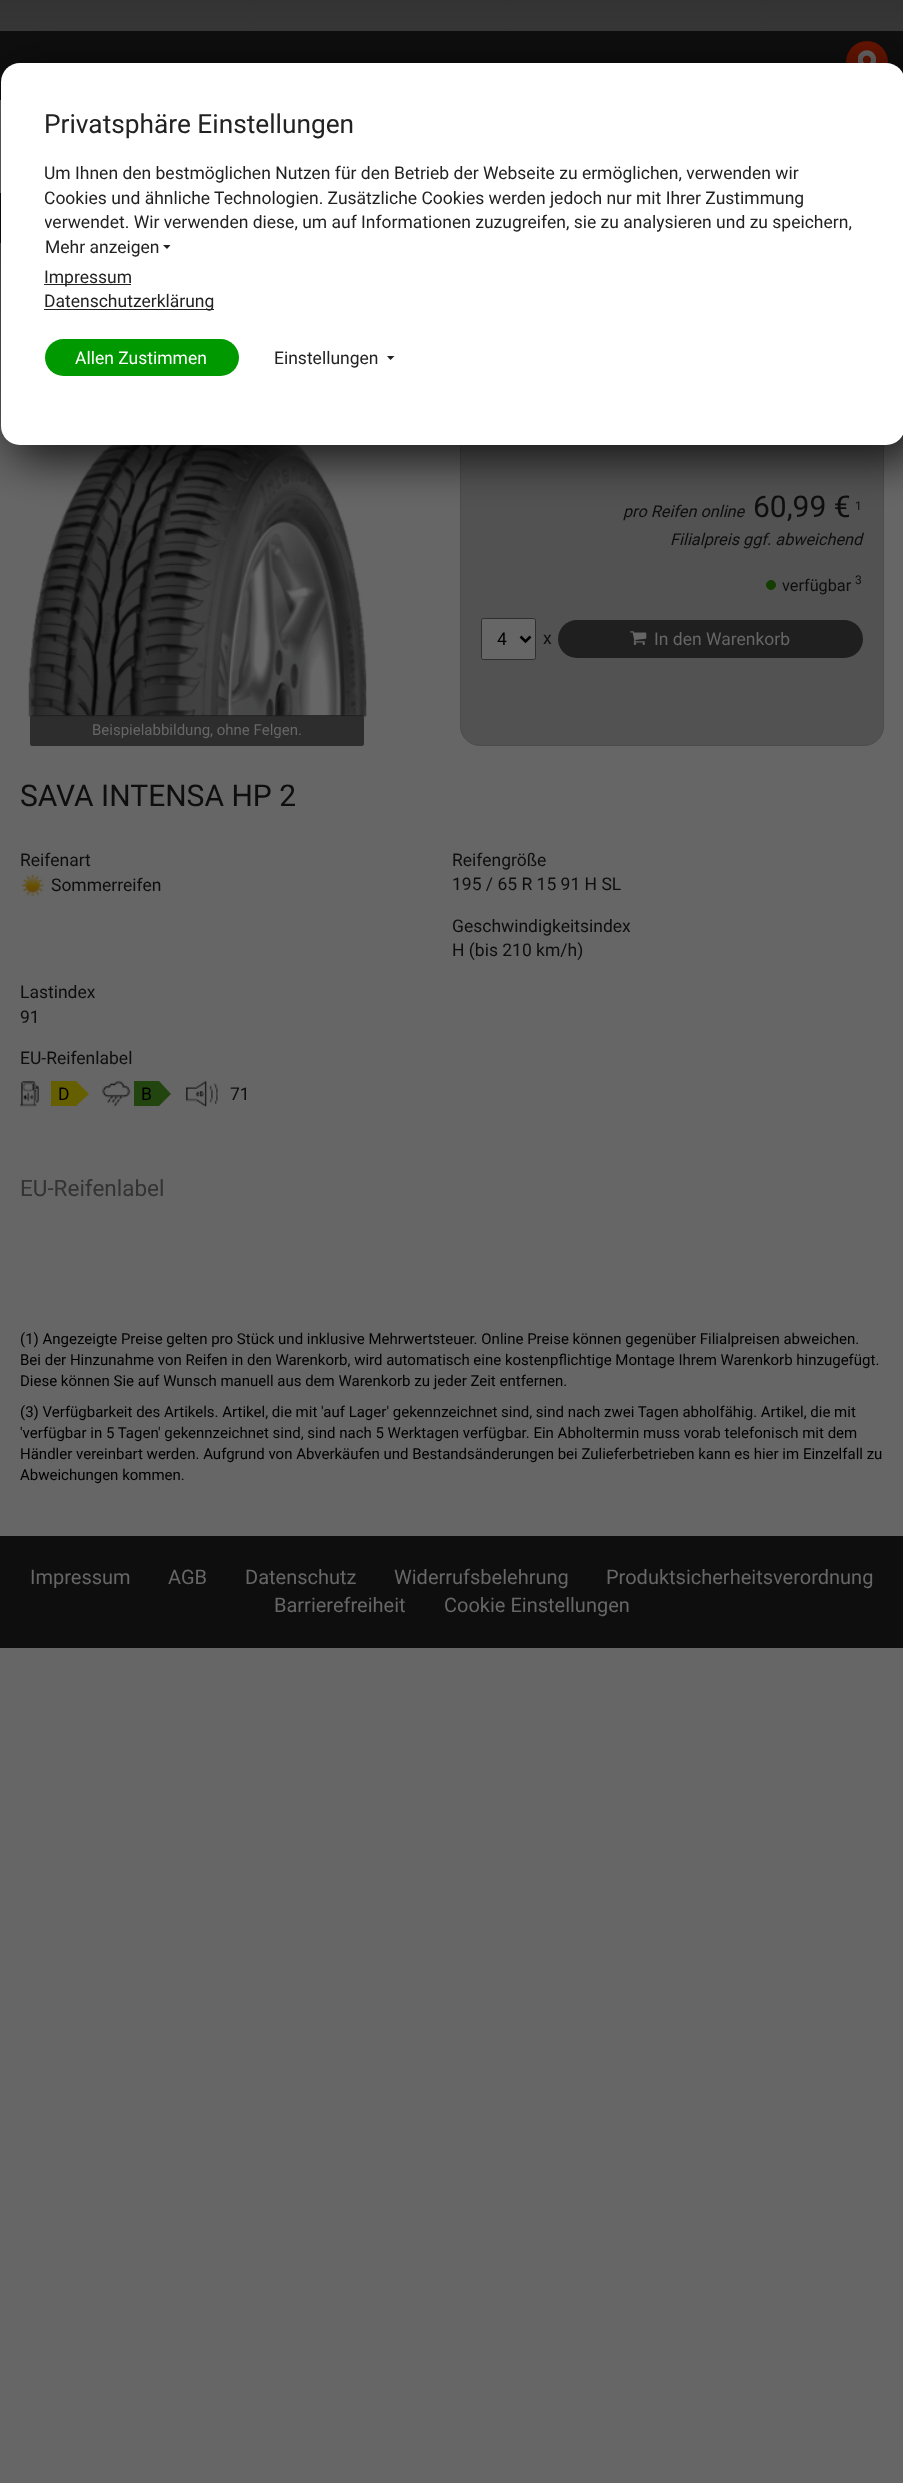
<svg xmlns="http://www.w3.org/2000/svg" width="903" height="2483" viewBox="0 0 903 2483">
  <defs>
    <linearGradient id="g1" gradientUnits="userSpaceOnUse" x1="452" y1="0" x2="452" y2="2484"><stop offset="0" stop-color="#333333"/><stop offset="0.2" stop-color="#666666"/><stop offset="1" stop-color="#666666"/></linearGradient>
    <clipPath id="clip1"><path d="M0 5H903V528H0ZM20 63H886C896.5 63 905 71.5 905 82V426C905 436.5 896.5 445 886 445H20C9.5 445 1 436.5 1 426V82C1 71.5 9.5 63 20 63Z" clip-rule="evenodd"/></clipPath>
    <filter id="blur1" x="-50%" y="-200%" width="200%" height="500%"><feGaussianBlur stdDeviation="23"/></filter>
    <clipPath id="clip2"><rect x="45" y="161" width="816" height="74"/></clipPath>
  </defs>
  <rect width="100%" height="100%" fill="#ffffff"/>
  <rect x="0" y="0" width="903" height="2483" fill="url(#g1)"/>
  <rect x="0" y="31" width="903" height="69" fill="#0e0e0e"/>
  <circle cx="867" cy="62" r="21" fill="#661400"/>
  <image x="858" y="50" width="18" height="13" href="img1.png"/>
  <rect x="0" y="100" width="1" height="93" fill="#666666"/>
  <rect x="0" y="193" width="1" height="50" fill="#0e0e0e"/>
  <rect x="460.5" y="400.5" width="423" height="345" rx="19.5" fill="#525252" stroke="#4b4b4b"/>
  <image x="28" y="445" width="339" height="272" href="img3.png"/>
  <g clip-path="url(#clip1)">
    <rect x="14" y="75" width="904" height="383" rx="19" fill="#000000" fill-opacity="0.75" filter="url(#blur1)"/>
  </g>
  <rect x="1" y="63" width="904" height="382" rx="19" fill="#ffffff"/>
  <text x="44" y="133" font-family="Roboto" font-size="26.25" fill="#222222">Privatsphäre Einstellungen</text>
  <text x="44" y="179" font-family="Roboto" font-size="17.5" fill="#222222">Um Ihnen den bestmöglichen Nutzen für den Betrieb der Webseite zu ermöglichen, verwenden wir</text>
  <g clip-path="url(#clip2)">
    <text x="44" y="204" font-family="Roboto" font-size="17.5" fill="#222222">Cookies und ähnliche Technologien. Zusätzliche Cookies werden jedoch nur mit Ihrer Zustimmung</text>
    <text x="44" y="228" font-family="Roboto" font-size="17.5" fill="#222222">verwendet. Wir verwenden diese, um auf Informationen zuzugreifen, sie zu analysieren und zu speichern,</text>
  </g>
  <text x="45" y="253" font-family="Roboto" font-size="17.5" fill="#222222">Mehr anzeigen</text>
  <path d="M163 245H170.5L167 249Z" fill="#222222"/>
  <rect x="44" y="284" width="87" height="1" fill="#222222"/>
  <text x="44" y="283" font-family="Roboto" font-size="17.5" fill="#222222">Impressum</text>
  <rect x="44" y="309" width="170" height="1" fill="#222222"/>
  <text x="44" y="307" font-family="Roboto" font-size="17.5" fill="#222222">Datenschutzerklärung</text>
  <rect x="45" y="339" width="194" height="37" rx="18.5" fill="#009900"/>
  <text x="75" y="364" font-family="Roboto" font-size="17.5" fill="#ffffff">Allen Zustimmen</text>
  <text x="274" y="364" font-family="Roboto" font-size="17.5" fill="#222222">Einstellungen</text>
  <path d="M387 356H394.5L390.5 360Z" fill="#222222"/>
  <text x="623" y="517" font-family="Roboto" font-size="16.25" font-style="italic" fill="#0e0e0e">pro Reifen online</text>
  <text x="753" y="517" font-family="Roboto" font-size="30" fill="#0e0e0e">60,99 €</text>
  <text x="855" y="510" font-family="Roboto" font-size="12" fill="#0e0e0e">1</text>
  <text x="670" y="545" font-family="Roboto" font-size="16.25" font-style="italic" fill="#0e0e0e">Filialpreis ggf. abweichend</text>
  <circle cx="771" cy="585" r="4.5" fill="#143d00" stroke="#143d00"/>
  <text x="782" y="591" font-family="Roboto" font-size="16.25" fill="#0e0e0e">verfügbar</text>
  <text x="855" y="584" font-family="Roboto" font-size="12" fill="#0e0e0e">3</text>
  <rect x="481.5" y="618.5" width="54" height="41" rx="2" fill="#666666" stroke="#2f2f2f"/>
  <path d="M520.5 636.5L525.5 641.5L530.5 636.5" fill="none" stroke="#000000" stroke-width="2.5"/>
  <text x="497" y="645" font-family="Roboto" font-size="17.5" fill="#000000">4</text>
  <text x="543" y="644" font-family="Roboto" font-size="17.5" fill="#0e0e0e">x</text>
  <rect x="558" y="620" width="305" height="38" rx="19" fill="#1f1f1f"/>
  <image x="630" y="631" width="17" height="14" href="img2.png"/>
  <text x="654" y="645" font-family="Roboto" font-size="17.5" fill="#666666">In den Warenkorb</text>
  <rect x="30" y="715" width="334" height="31" rx="2.5" fill="#1f1f1f" fill-opacity="0.8"/>
  <text x="92" y="735" font-family="Roboto" font-size="15" fill="#666666">Beispielabbildung, ohne Felgen.</text>
  <text x="20" y="806" font-family="Roboto" font-size="30" fill="#0e0e0e">SAVA INTENSA HP 2</text>
  <text x="20" y="866" font-family="Roboto" font-size="17.5" fill="#0e0e0e">Reifenart</text>
  <image x="21" y="874" width="23" height="23" href="img4.png"/>
  <text x="51" y="891" font-family="Roboto" font-size="17.5" fill="#0e0e0e">Sommerreifen</text>
  <text x="452" y="866" font-family="Roboto" font-size="17.5" fill="#0e0e0e">Reifengröße</text>
  <text x="452" y="890" font-family="Roboto" font-size="17.5" fill="#0e0e0e">195 / 65 R 15 91 H SL</text>
  <text x="452" y="932" font-family="Roboto" font-size="17.5" fill="#0e0e0e">Geschwindigkeitsindex</text>
  <text x="452" y="956" font-family="Roboto" font-size="17.5" fill="#0e0e0e">H (bis 210 km/h)</text>
  <text x="20" y="998" font-family="Roboto" font-size="17.5" fill="#0e0e0e">Lastindex</text>
  <text x="20" y="1023" font-family="Roboto" font-size="17.5" fill="#0e0e0e">91</text>
  <text x="20" y="1064" font-family="Roboto" font-size="17.5" fill="#0e0e0e">EU-Reifenlabel</text>
  <image x="20" y="1081" width="19" height="26" href="img5.png"/>
  <rect x="51" y="1081" width="25" height="25" fill="#665f00"/>
  <text x="58" y="1100" font-family="Roboto" font-size="17.5" fill="#000000">D</text>
  <path d="M76 1106V1081L89 1094Z" fill="#665f00"/>
  <image x="102" y="1081" width="29" height="26" href="img6.png"/>
  <rect x="134" y="1081" width="25" height="25" fill="#22440f"/>
  <text x="141" y="1100" font-family="Roboto" font-size="17.5" fill="#000000">B</text>
  <path d="M159 1106V1081L171 1094Z" fill="#22440f"/>
  <image x="186" y="1081" width="32" height="26" href="img7.png"/>
  <text x="230" y="1100" font-family="Roboto" font-size="17.5" fill="#0e0e0e">71</text>
  <text x="20" y="1196" font-family="Roboto" font-size="22.5" fill="#333333">EU-Reifenlabel</text>
  <text x="20" y="1344" font-family="Roboto" font-size="15" fill="#000000">(1) Angezeigte Preise gelten pro Stück und inklusive Mehrwertsteuer. Online Preise können gegenüber Filialpreisen abweichen.</text>
  <text x="20" y="1365" font-family="Roboto" font-size="15" fill="#000000">Bei der Hinzunahme von Reifen in den Warenkorb, wird automatisch eine kostenpflichtige Montage Ihrem Warenkorb hinzugefügt.</text>
  <text x="20" y="1386" font-family="Roboto" font-size="15" fill="#000000">Diese können Sie auf Wunsch manuell aus dem Warenkorb zu jeder Zeit entfernen.</text>
  <text x="20" y="1417" font-family="Roboto" font-size="15" fill="#000000">(3) Verfügbarkeit des Artikels. Artikel, die mit 'auf Lager' gekennzeichnet sind, sind nach zwei Tagen abholfähig. Artikel, die mit</text>
  <text x="20" y="1438" font-family="Roboto" font-size="15" fill="#000000">'verfügbar in 5 Tagen' gekennzeichnet sind, sind nach 5 Werktagen verfügbar. Ein Abholtermin muss vorab telefonisch mit dem</text>
  <text x="20" y="1459" font-family="Roboto" font-size="15" fill="#000000">Händler vereinbart werden. Aufgrund von Abverkäufen und Bestandsänderungen bei Zulieferbetrieben kann es hier im Einzelfall zu</text>
  <text x="20" y="1480" font-family="Roboto" font-size="15" fill="#000000">Abweichungen kommen.</text>
  <rect x="0" y="1536" width="903" height="112" fill="#0e0e0e"/>
  <text x="30" y="1584" font-family="Roboto" font-size="20" fill="#666666">Impressum</text>
  <text x="168" y="1584" font-family="Roboto" font-size="20" fill="#666666">AGB</text>
  <text x="245" y="1584" font-family="Roboto" font-size="20" fill="#666666">Datenschutz</text>
  <text x="394" y="1584" font-family="Roboto" font-size="20" fill="#666666">Widerrufsbelehrung</text>
  <text x="606" y="1584" font-family="Roboto" font-size="20" fill="#666666">Produktsicherheitsverordnung</text>
  <text x="274" y="1612" font-family="Roboto" font-size="20" fill="#666666">Barrierefreiheit</text>
  <text x="444" y="1612" font-family="Roboto" font-size="20" fill="#666666">Cookie Einstellungen</text>
</svg>
